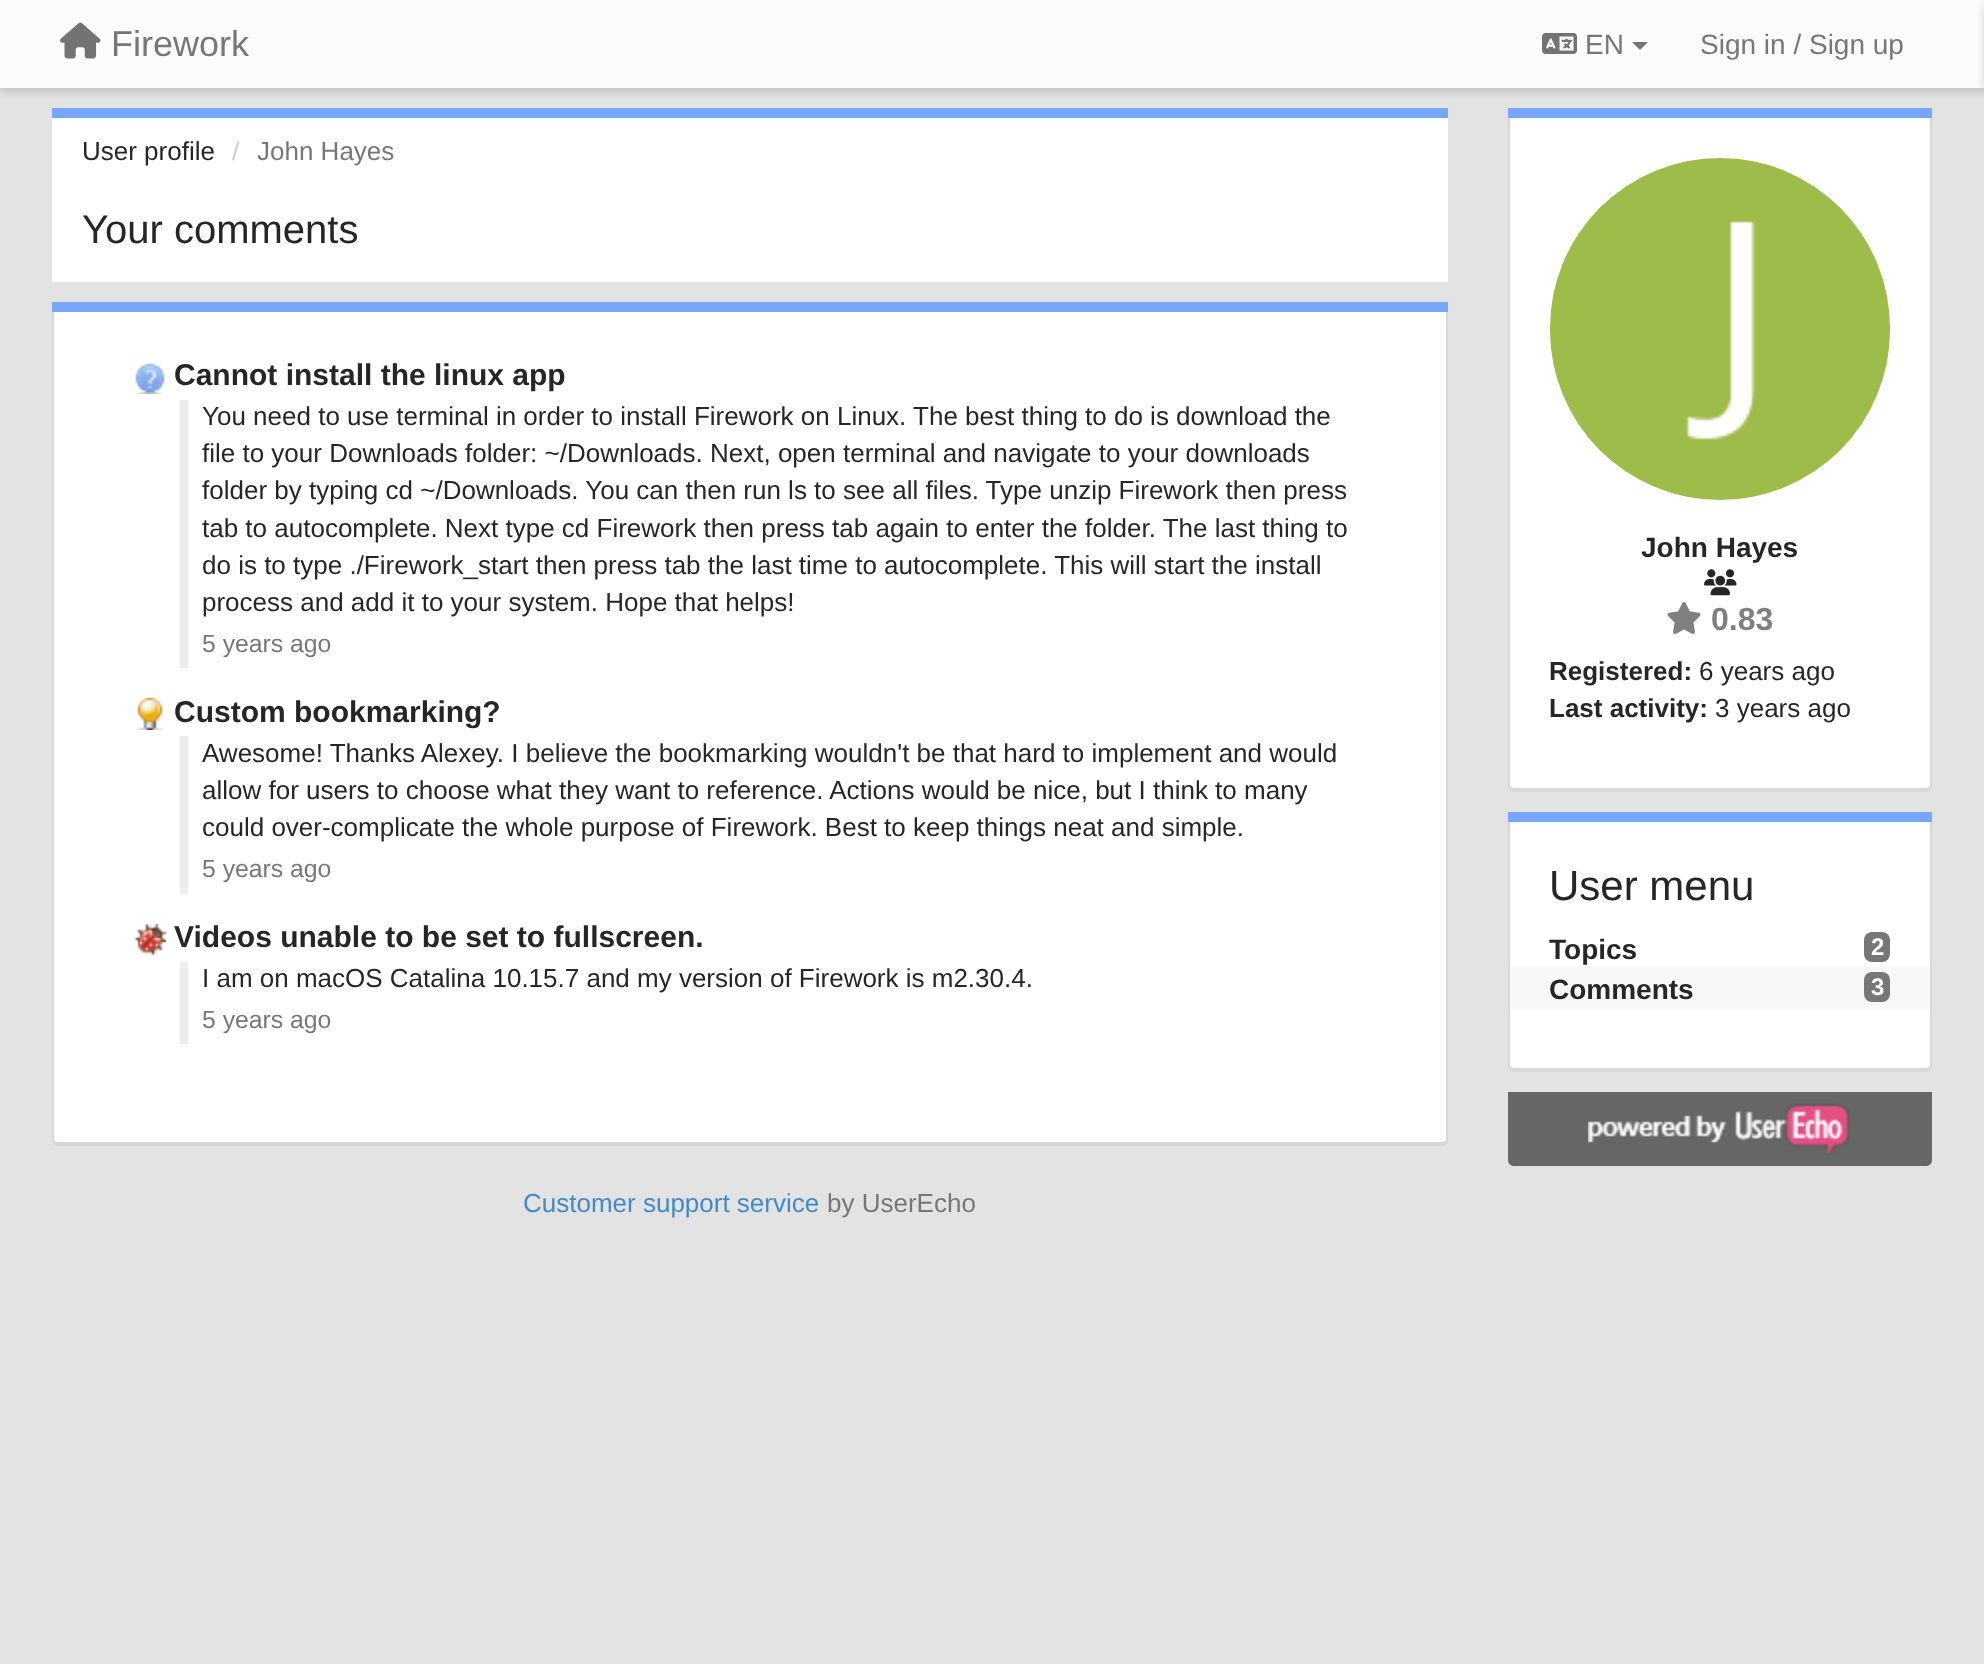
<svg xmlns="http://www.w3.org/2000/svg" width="1984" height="1664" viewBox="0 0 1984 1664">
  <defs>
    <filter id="blur1" x="-50%" y="-200%" width="200%" height="500%"><feGaussianBlur stdDeviation="4"/></filter>
  </defs>
  <rect width="100%" height="100%" fill="#e3e3e3"/>
  <rect x="0" y="4" width="1984" height="88" fill="#000000" fill-opacity="0.15" filter="url(#blur1)"/>
  <rect x="0" y="0" width="1984" height="88" fill="#fbfbfb"/>
  <image x="60" y="22" width="41" height="37" href="img1.png"/>
  <text x="111" y="56" font-family="Liberation Sans" font-size="36" fill="#777777">Firework</text>
  <image x="1542" y="33" width="35" height="21" href="img2.png"/>
  <text x="1585" y="54" font-family="Liberation Sans" font-size="28" fill="#777777">EN</text>
  <path d="M1632 42H1648L1640 50Z" fill="#737373"/>
  <text x="1700" y="54" font-family="Liberation Sans" font-size="28" fill="#777777">Sign in / Sign up</text>
  <rect x="1984" y="4" width="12" height="88" fill="#000000" fill-opacity="0.15" filter="url(#blur1)"/>
  <rect x="52" y="118" width="1396" height="164" fill="#ffffff"/>
  <rect x="52" y="108" width="1396" height="10" fill="#76a7fa"/>
  <text x="82" y="160" font-family="Liberation Sans" font-size="26" fill="#262626">User profile</text>
  <text x="232" y="160" font-family="Liberation Sans" font-size="26" fill="#cccccc">/</text>
  <text x="257" y="160" font-family="Liberation Sans" font-size="26" fill="#777777">John Hayes</text>
  <text x="82" y="243" font-family="Liberation Sans" font-size="40" fill="#262626">Your comments</text>
  <rect x="52" y="302" width="1396" height="10" fill="#76a7fa"/>
  <path d="M54 312H1446V1140C1446 1141 1444 1142 1442 1142H58C56 1142 54 1141 54 1140Z" fill="#ffffff"/>
  <path d="M52 312H1448V1140C1448 1143 1445 1146 1442 1146H58C55 1146 52 1143 52 1140ZM54 312H1446V1140C1446 1141 1444 1142 1442 1142H58C56 1142 54 1141 54 1140Z" fill="#d8d8d8" fill-rule="evenodd"/>
  <image x="135" y="363" width="30" height="31" href="img3.png"/>
  <text x="174" y="385" font-family="Liberation Sans" font-size="30" font-weight="bold" fill="#262626">Cannot install the linux app</text>
  <rect x="180" y="400" width="8" height="268" fill="#eeeeee"/>
  <text x="202" y="425" font-family="Liberation Sans" font-size="26" fill="#262626">You need to use terminal in order to install Firework on Linux. The best thing to do is download the</text>
  <text x="202" y="462" font-family="Liberation Sans" font-size="26" fill="#262626">file to your Downloads folder: ~/Downloads. Next, open terminal and navigate to your downloads</text>
  <text x="202" y="499" font-family="Liberation Sans" font-size="26" fill="#262626">folder by typing cd ~/Downloads. You can then run ls to see all files. Type unzip Firework then press</text>
  <text x="202" y="537" font-family="Liberation Sans" font-size="26" fill="#262626">tab to autocomplete. Next type cd Firework then press tab again to enter the folder. The last thing to</text>
  <text x="202" y="574" font-family="Liberation Sans" font-size="26" fill="#262626">do is to type ./Firework_start then press tab the last time to autocomplete. This will start the install</text>
  <text x="202" y="611" font-family="Liberation Sans" font-size="26" fill="#262626">process and add it to your system. Hope that helps!</text>
  <text x="202" y="652" font-family="Liberation Sans" font-size="24.75" fill="#777777">5 years ago</text>
  <image x="135" y="698" width="29" height="32" href="img4.png"/>
  <text x="174" y="722" font-family="Liberation Sans" font-size="30" font-weight="bold" fill="#262626">Custom bookmarking?</text>
  <rect x="180" y="736" width="8" height="158" fill="#eeeeee"/>
  <text x="202" y="762" font-family="Liberation Sans" font-size="26" fill="#262626">Awesome! Thanks Alexey. I believe the bookmarking wouldn't be that hard to implement and would</text>
  <text x="202" y="799" font-family="Liberation Sans" font-size="26" fill="#262626">allow for users to choose what they want to reference. Actions would be nice, but I think to many</text>
  <text x="202" y="836" font-family="Liberation Sans" font-size="26" fill="#262626">could over-complicate the whole purpose of Firework. Best to keep things neat and simple.</text>
  <text x="202" y="877" font-family="Liberation Sans" font-size="24.75" fill="#777777">5 years ago</text>
  <image x="134" y="924" width="32" height="32" href="img5.png"/>
  <text x="174" y="947" font-family="Liberation Sans" font-size="30" font-weight="bold" fill="#262626">Videos unable to be set to fullscreen.</text>
  <rect x="180" y="962" width="8" height="82" fill="#eeeeee"/>
  <text x="202" y="987" font-family="Liberation Sans" font-size="26" fill="#262626">I am on macOS Catalina 10.15.7 and my version of Firework is m2.30.4.</text>
  <text x="202" y="1028" font-family="Liberation Sans" font-size="24.75" fill="#777777">5 years ago</text>
  <text x="523" y="1212" font-family="Liberation Sans" font-size="26" fill="#428bca">Customer support service</text>
  <text x="827" y="1212" font-family="Liberation Sans" font-size="26" fill="#777777">by UserEcho</text>
  <rect x="1508" y="108" width="424" height="10" fill="#76a7fa"/>
  <path d="M1510 118H1930V786C1930 787 1928 788 1926 788H1514C1512 788 1510 787 1510 786Z" fill="#ffffff"/>
  <path d="M1508 118H1932V786C1932 789 1929 792 1926 792H1514C1511 792 1508 789 1508 786ZM1510 118H1930V786C1930 787 1928 788 1926 788H1514C1512 788 1510 787 1510 786Z" fill="#d8d8d8" fill-rule="evenodd"/>
  <rect x="1550" y="158" width="340" height="342" rx="170" fill="#9dbc4a"/>
  <image x="1685" y="221" width="71" height="219" href="img6.png"/>
  <text x="1641" y="557" font-family="Liberation Sans" font-size="28" font-weight="bold" fill="#262626">John Hayes</text>
  <image x="1704" y="569" width="33" height="27" href="img7.png"/>
  <image x="1667" y="602" width="34" height="32" href="img8.png"/>
  <text x="1711" y="630" font-family="Liberation Sans" font-size="32" font-weight="bold" fill="#808080">0.83</text>
  <text x="1549" y="680" font-family="Liberation Sans" font-size="26" font-weight="bold" fill="#262626">Registered:</text>
  <text x="1699" y="680" font-family="Liberation Sans" font-size="26" fill="#262626">6 years ago</text>
  <text x="1549" y="717" font-family="Liberation Sans" font-size="26" font-weight="bold" fill="#262626">Last activity:</text>
  <text x="1715" y="717" font-family="Liberation Sans" font-size="26" fill="#262626">3 years ago</text>
  <rect x="1508" y="812" width="424" height="10" fill="#76a7fa"/>
  <path d="M1510 822H1930V1066C1930 1067 1928 1068 1926 1068H1514C1512 1068 1510 1067 1510 1066Z" fill="#ffffff"/>
  <path d="M1508 822H1932V1066C1932 1069 1929 1072 1926 1072H1514C1511 1072 1508 1069 1508 1066ZM1510 822H1930V1066C1930 1067 1928 1068 1926 1068H1514C1512 1068 1510 1067 1510 1066Z" fill="#d8d8d8" fill-rule="evenodd"/>
  <text x="1549" y="900" font-family="Liberation Sans" font-size="42" fill="#262626">User menu</text>
  <text x="1549" y="959" font-family="Liberation Sans" font-size="28" font-weight="bold" fill="#262626">Topics</text>
  <rect x="1864" y="932" width="26" height="30" rx="8" fill="#777777"/>
  <text x="1871" y="955" font-family="Liberation Sans" font-size="24" font-weight="bold" fill="#ffffff">2</text>
  <rect x="1510" y="966" width="420" height="44" fill="#f7f7f7"/>
  <text x="1549" y="999" font-family="Liberation Sans" font-size="28" font-weight="bold" fill="#262626">Comments</text>
  <rect x="1864" y="972" width="26" height="30" rx="8" fill="#777777"/>
  <text x="1871" y="995" font-family="Liberation Sans" font-size="24" font-weight="bold" fill="#ffffff">3</text>
  <path d="M1508 1092H1932V1160C1932 1163.5 1929.5 1166 1926 1166H1514C1510.5 1166 1508 1163.5 1508 1160Z" fill="#666666"/>
  <image x="1588" y="1103" width="262" height="52" href="img9.png"/>
</svg>
